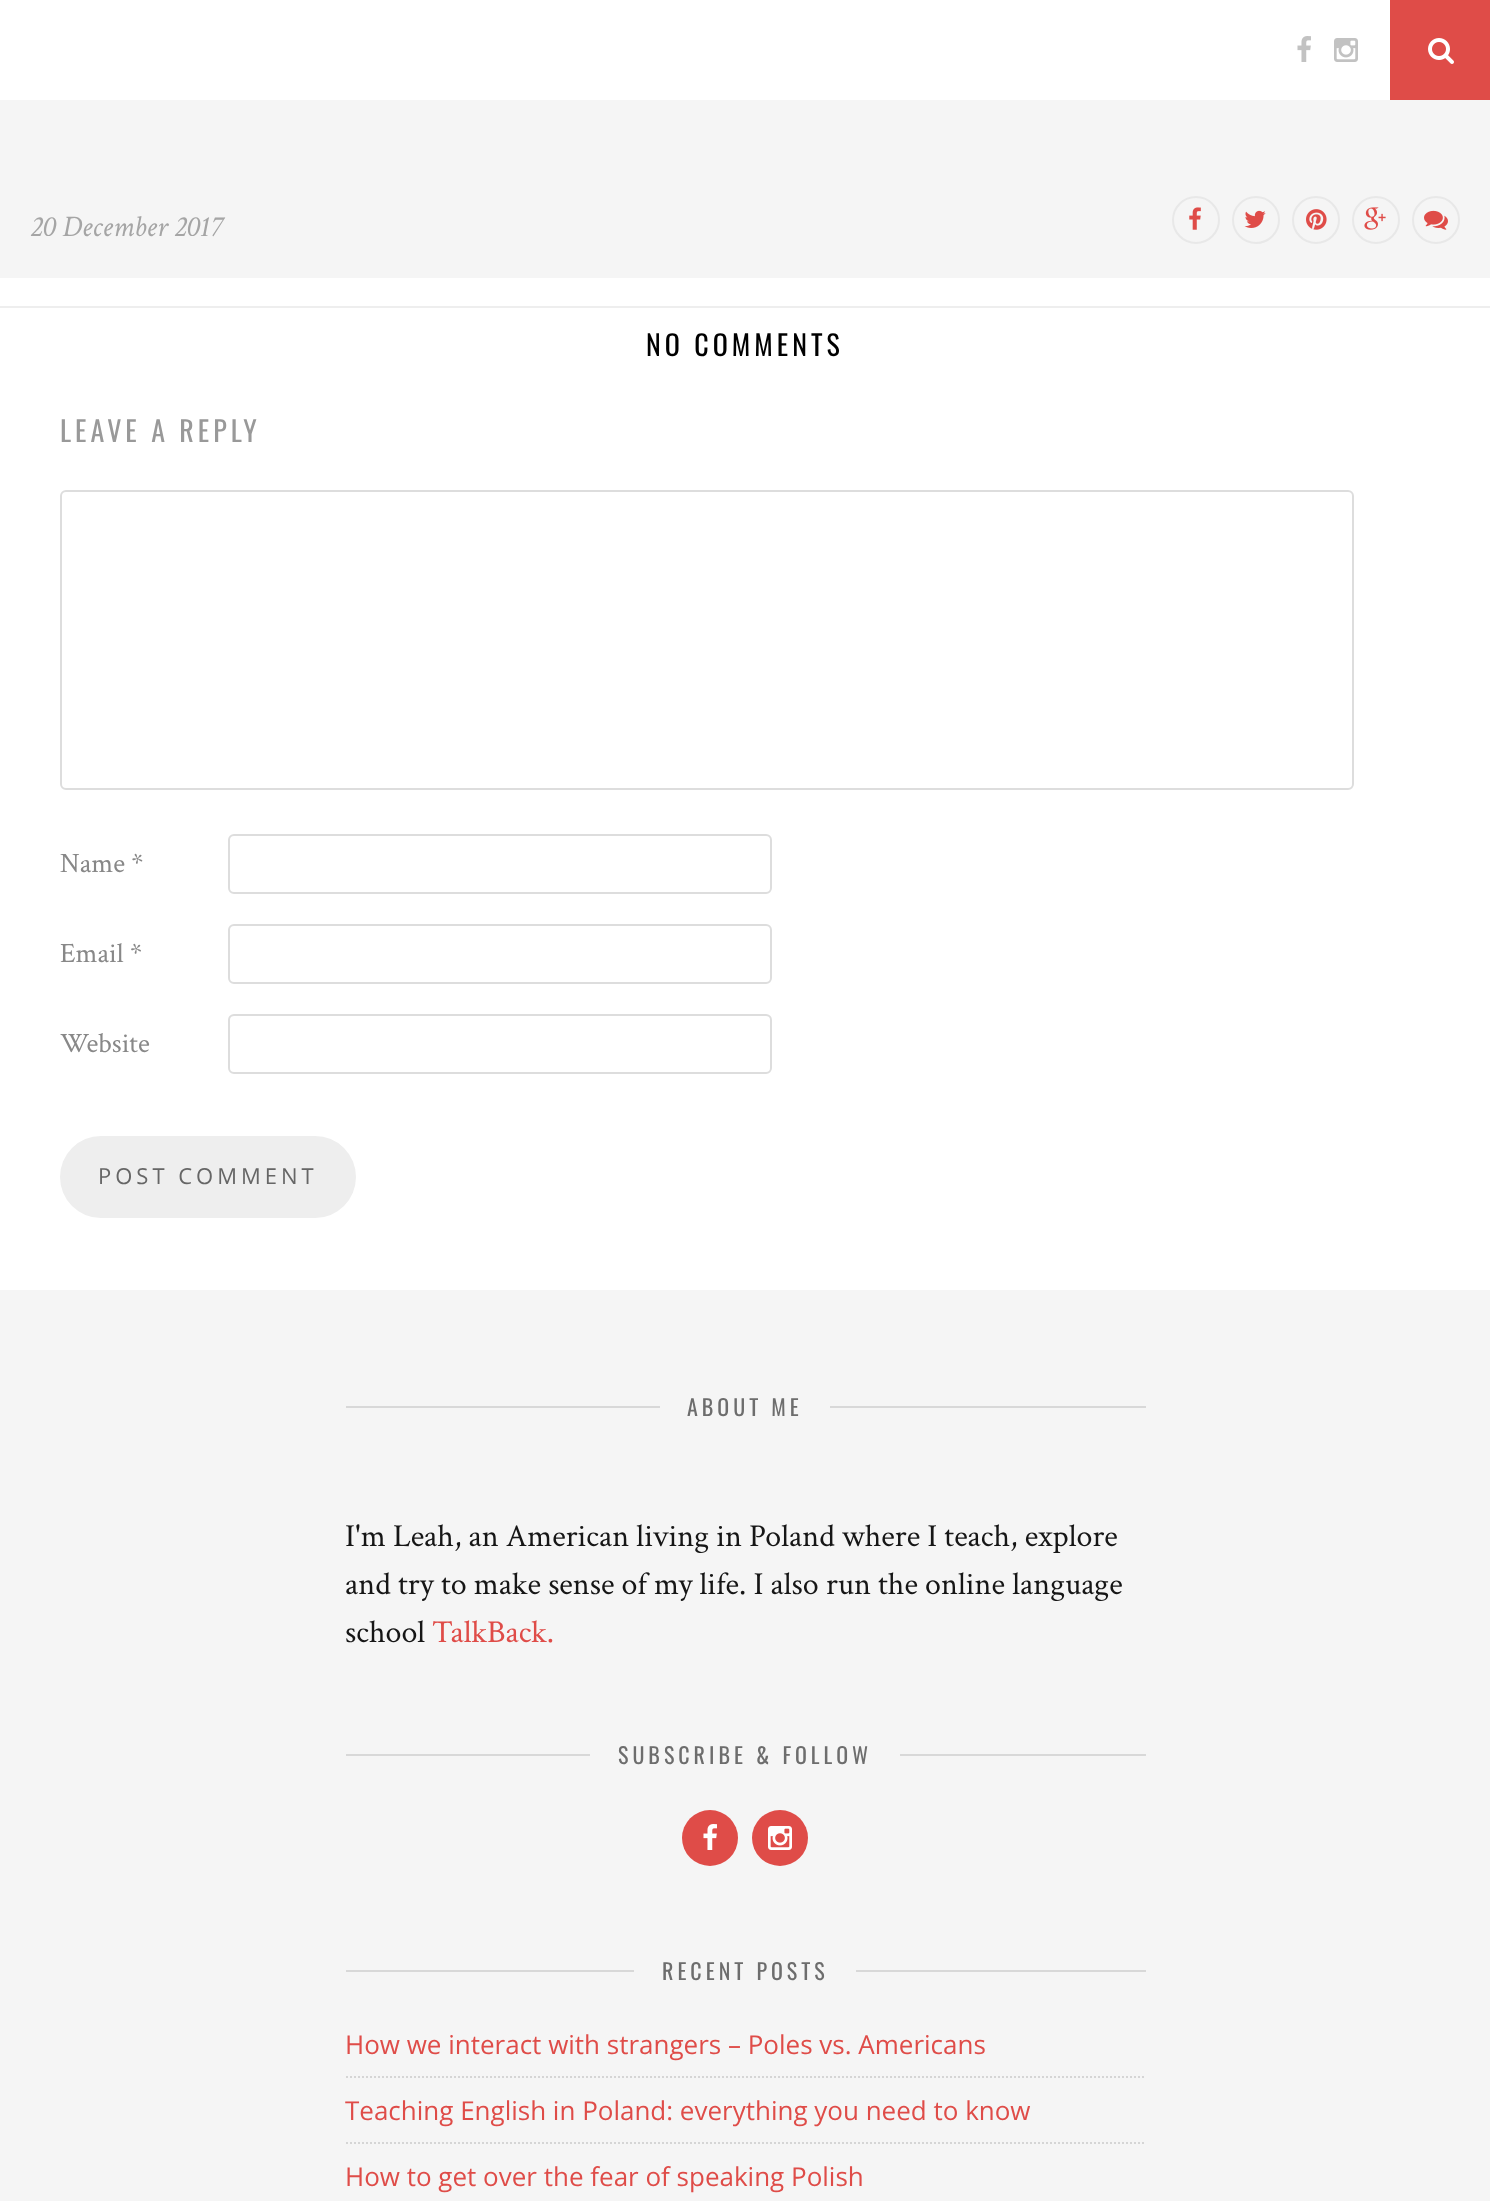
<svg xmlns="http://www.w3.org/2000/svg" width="1490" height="2201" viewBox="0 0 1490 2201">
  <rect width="100%" height="100%" fill="#f5f5f5"/>
  <rect x="0" y="0" width="1390" height="100" fill="#ffffff"/>
  <image x="1297" y="36" width="14" height="26" href="img1.png"/>
  <image x="1334" y="38" width="24" height="24" href="img2.png"/>
  <rect x="1390" y="0" width="100" height="100" fill="#df4c48"/>
  <image x="1428" y="38" width="26" height="26" href="img3.png"/>
  <text x="30" y="236" font-family="Crimson Text" font-size="30" font-style="italic" fill="#a5a5a5">20 December 2017</text>
  <circle cx="1196" cy="220" r="23" fill="none" stroke="#e8e8e8" stroke-width="2"/>
  <image x="1189" y="207" width="12" height="23" href="img4.png"/>
  <circle cx="1256" cy="220" r="23" fill="none" stroke="#e8e8e8" stroke-width="2"/>
  <image x="1244" y="210" width="22" height="18" href="img5.png"/>
  <circle cx="1316" cy="220" r="23" fill="none" stroke="#e8e8e8" stroke-width="2"/>
  <image x="1306" y="209" width="21" height="21" href="img6.png"/>
  <circle cx="1376" cy="220" r="23" fill="none" stroke="#e8e8e8" stroke-width="2"/>
  <image x="1364" y="207" width="22" height="23" href="img7.png"/>
  <circle cx="1436" cy="220" r="23" fill="none" stroke="#e8e8e8" stroke-width="2"/>
  <image x="1424" y="210" width="24" height="20" href="img8.png"/>
  <rect x="0" y="278" width="1490" height="1012" fill="#ffffff"/>
  <rect x="0" y="306" width="1490" height="2" fill="#eeeeee"/>
  <text x="646" y="356" font-family="Oswald" font-size="28" letter-spacing="4" fill="#000000">NO COMMENTS</text>
  <text x="60" y="442" font-family="Oswald" font-size="28" letter-spacing="4" fill="#999999">LEAVE A REPLY</text>
  <rect x="61" y="491" width="1292" height="298" rx="5" fill="none" stroke="#dddddd" stroke-width="2"/>
  <text x="60" y="872" font-family="Crimson Text" font-size="28" fill="#888888">Name *</text>
  <rect x="229" y="835" width="542" height="58" rx="5" fill="none" stroke="#dddddd" stroke-width="2"/>
  <text x="60" y="962" font-family="Crimson Text" font-size="28" fill="#888888">Email *</text>
  <rect x="229" y="925" width="542" height="58" rx="5" fill="none" stroke="#dddddd" stroke-width="2"/>
  <text x="60" y="1052" font-family="Crimson Text" font-size="28" fill="#888888">Website</text>
  <rect x="229" y="1015" width="542" height="58" rx="5" fill="none" stroke="#dddddd" stroke-width="2"/>
  <rect x="60" y="1136" width="296" height="82" rx="41" fill="#eeeeee"/>
  <text x="98" y="1184" font-family="Open Sans" font-size="22" letter-spacing="4" fill="#666666">POST COMMENT</text>
  <rect x="346" y="1406" width="314" height="2" fill="#d8d8d8"/>
  <text x="687" y="1416" font-family="Oswald" font-size="22" letter-spacing="4" fill="#6d6d6d">ABOUT ME</text>
  <rect x="830" y="1406" width="316" height="2" fill="#d8d8d8"/>
  <text x="345" y="1546" font-family="Crimson Text" font-size="32" fill="#161616">I'm Leah, an American living in Poland where I teach, explore</text>
  <text x="345" y="1594" font-family="Crimson Text" font-size="32" fill="#161616">and try to make sense of my life. I also run the online language</text>
  <text x="345" y="1642" font-family="Crimson Text" font-size="32" fill="#161616">school</text>
  <text x="432" y="1642" font-family="Crimson Text" font-size="32" fill="#df4c48">TalkBack.</text>
  <rect x="346" y="1754" width="244" height="2" fill="#d8d8d8"/>
  <text x="618" y="1764" font-family="Oswald" font-size="22" letter-spacing="4" fill="#6d6d6d">SUBSCRIBE &amp; FOLLOW</text>
  <rect x="900" y="1754" width="246" height="2" fill="#d8d8d8"/>
  <circle cx="710" cy="1838" r="28" fill="#df4c48"/>
  <image x="703" y="1824" width="14" height="26" href="img9.png"/>
  <circle cx="780" cy="1838" r="28" fill="#df4c48"/>
  <image x="768" y="1826" width="24" height="24" href="img10.png"/>
  <rect x="346" y="1970" width="288" height="2" fill="#d8d8d8"/>
  <text x="662" y="1980" font-family="Oswald" font-size="22" letter-spacing="4" fill="#6d6d6d">RECENT POSTS</text>
  <rect x="856" y="1970" width="290" height="2" fill="#d8d8d8"/>
  <path d="M346 2077H1146" fill="none" stroke="#d5d5d5" stroke-width="2" stroke-dasharray="2 2"/>
  <text x="345" y="2054" font-family="Open Sans" font-size="26" fill="#df4c48">How we interact with strangers – Poles vs. Americans</text>
  <path d="M346 2143H1146" fill="none" stroke="#d5d5d5" stroke-width="2" stroke-dasharray="2 2"/>
  <text x="345" y="2120" font-family="Open Sans" font-size="26" fill="#df4c48">Teaching English in Poland: everything you need to know</text>
  <text x="345" y="2186" font-family="Open Sans" font-size="26" fill="#df4c48">How to get over the fear of speaking Polish</text>
</svg>
